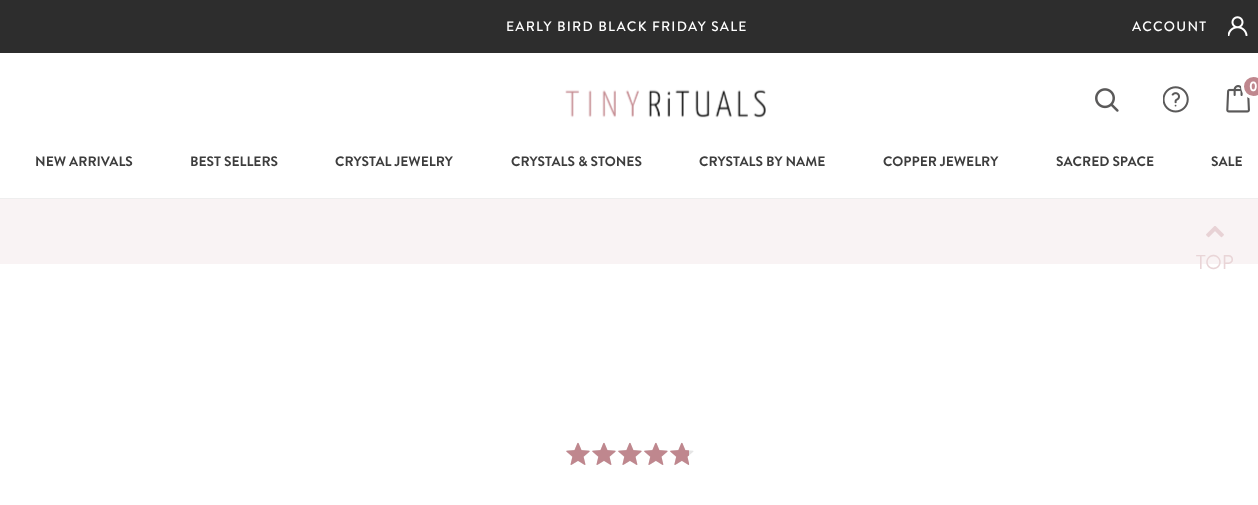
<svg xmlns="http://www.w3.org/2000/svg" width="1258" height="505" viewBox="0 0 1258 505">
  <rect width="100%" height="100%" fill="#ffffff"/>
  <rect x="0" y="198" width="1258" height="1" fill="#eeeeee"/>
  <rect x="0" y="0" width="1258" height="53" fill="#2d2d2d"/>
  <text x="506" y="31" font-family="Brandon Grotesque" font-size="13.75" font-weight="500" letter-spacing="1.25" fill="#ffffff">EARLY BIRD BLACK FRIDAY SALE</text>
  <text x="1132" y="31" font-family="Brandon Grotesque" font-size="13.75" font-weight="500" letter-spacing="1.25" fill="#ffffff">ACCOUNT</text>
  <image x="1228" y="16" width="20" height="20" href="img1.png"/>
  <image x="1095" y="88" width="24" height="24" href="img2.png"/>
  <image x="1163" y="86" width="26" height="27" href="img3.png"/>
  <image x="1226" y="85" width="24" height="28" href="img4.png"/>
  <circle cx="1253.5" cy="86.5" r="11" fill="#bf878e" stroke="#ffffff" stroke-width="3"/>
  <text x="1249" y="91" font-family="Brandon Grotesque" font-size="13.75" font-weight="bold" letter-spacing="1.25" fill="#ffffff">0</text>
  <image x="565" y="89" width="201" height="29" href="img5.png"/>
  <text x="35" y="166" font-family="Brandon Grotesque" font-size="13.75" font-weight="bold" fill="#3d3d3d">NEW ARRIVALS</text>
  <text x="190" y="166" font-family="Brandon Grotesque" font-size="13.75" font-weight="bold" fill="#3d3d3d">BEST SELLERS</text>
  <text x="335" y="166" font-family="Brandon Grotesque" font-size="13.75" font-weight="bold" fill="#3d3d3d">CRYSTAL JEWELRY</text>
  <text x="511" y="166" font-family="Brandon Grotesque" font-size="13.75" font-weight="bold" fill="#3d3d3d">CRYSTALS &amp; STONES</text>
  <text x="699" y="166" font-family="Brandon Grotesque" font-size="13.75" font-weight="bold" fill="#3d3d3d">CRYSTALS BY NAME</text>
  <text x="883" y="166" font-family="Brandon Grotesque" font-size="13.75" font-weight="bold" fill="#3d3d3d">COPPER JEWELRY</text>
  <text x="1056" y="166" font-family="Brandon Grotesque" font-size="13.75" font-weight="bold" fill="#3d3d3d">SACRED SPACE</text>
  <text x="1211" y="166" font-family="Brandon Grotesque" font-size="13.75" font-weight="bold" fill="#3d3d3d">SALE</text>
  <rect x="0" y="199" width="1258" height="65" fill="#f9f3f4"/>
  <image x="566" y="442" width="128" height="23" href="img6.png"/>
  <image x="566" y="443" width="123" height="22" href="img7.png"/>
  <image x="1206" y="226" width="18" height="12" href="img8.png"/>
  <text x="1196" y="269" font-family="Brandon Grotesque" font-size="20" fill="#e9d5d7">TOP</text>
</svg>
